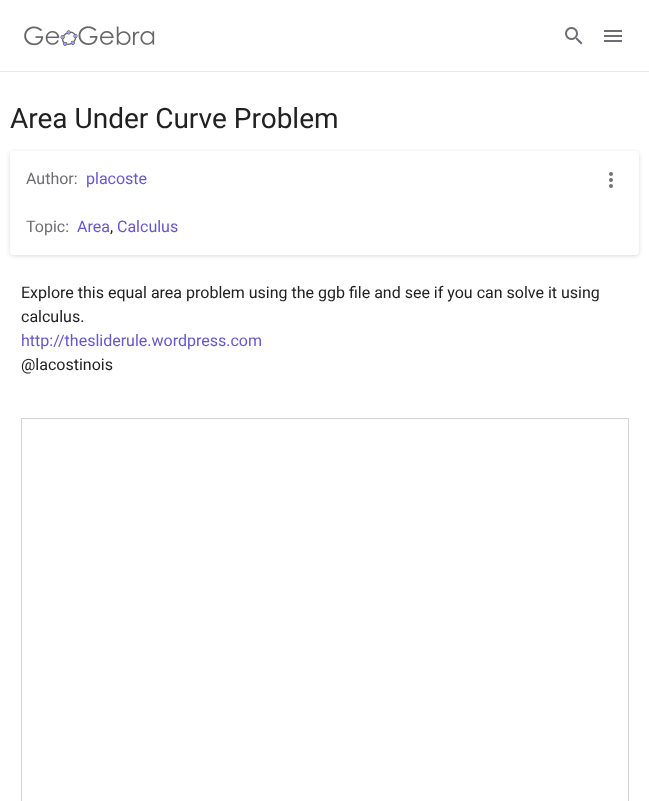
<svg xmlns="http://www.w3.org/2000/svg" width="649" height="801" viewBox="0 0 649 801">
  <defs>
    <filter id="blur1" x="-50%" y="-200%" width="200%" height="500%"><feGaussianBlur stdDeviation="2"/></filter>
  </defs>
  <rect width="100%" height="100%" fill="#ffffff"/>
  <rect x="0" y="71" width="649" height="1" fill="#e6e6eb"/>
  <image x="24" y="26" width="131" height="20" href="img1.png"/>
  <image x="565" y="27" width="18" height="18" href="img2.png"/>
  <image x="604" y="30" width="18" height="12" href="img3.png"/>
  <text x="10" y="128" font-family="Roboto" font-size="28" fill="#212121">Area Under Curve Problem</text>
  <rect x="10" y="152" width="629" height="104" rx="4" fill="#1c1c1f" fill-opacity="0.14" filter="url(#blur1)"/>
  <rect x="10" y="151" width="629" height="104" rx="4" fill="#ffffff"/>
  <text x="26" y="184" font-family="Roboto" font-size="16" fill="#6e6d73">Author:</text>
  <text x="86" y="184" font-family="Roboto" font-size="16" fill="#6557d2">placoste</text>
  <text x="26" y="232" font-family="Roboto" font-size="16" fill="#6e6d73">Topic:</text>
  <text x="77" y="232" font-family="Roboto" font-size="16" fill="#6557d2">Area</text>
  <text x="110" y="232" font-family="Roboto" font-size="16" fill="#212121">,</text>
  <text x="117" y="232" font-family="Roboto" font-size="16" fill="#6557d2">Calculus</text>
  <image x="609" y="172" width="4" height="16" href="img4.png"/>
  <text x="21" y="298" font-family="Roboto" font-size="16" fill="#212121">Explore this equal area problem using the ggb file and see if you can solve it using</text>
  <text x="21" y="322" font-family="Roboto" font-size="16" fill="#212121">calculus.</text>
  <text x="21" y="346" font-family="Roboto" font-size="16" fill="#6557d2">http://thesliderule.wordpress.com</text>
  <text x="21" y="370" font-family="Roboto" font-size="16" fill="#212121">@lacostinois</text>
  <rect x="21.5" y="418.5" width="607" height="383" fill="none" stroke="#d3d3d3"/>
</svg>
